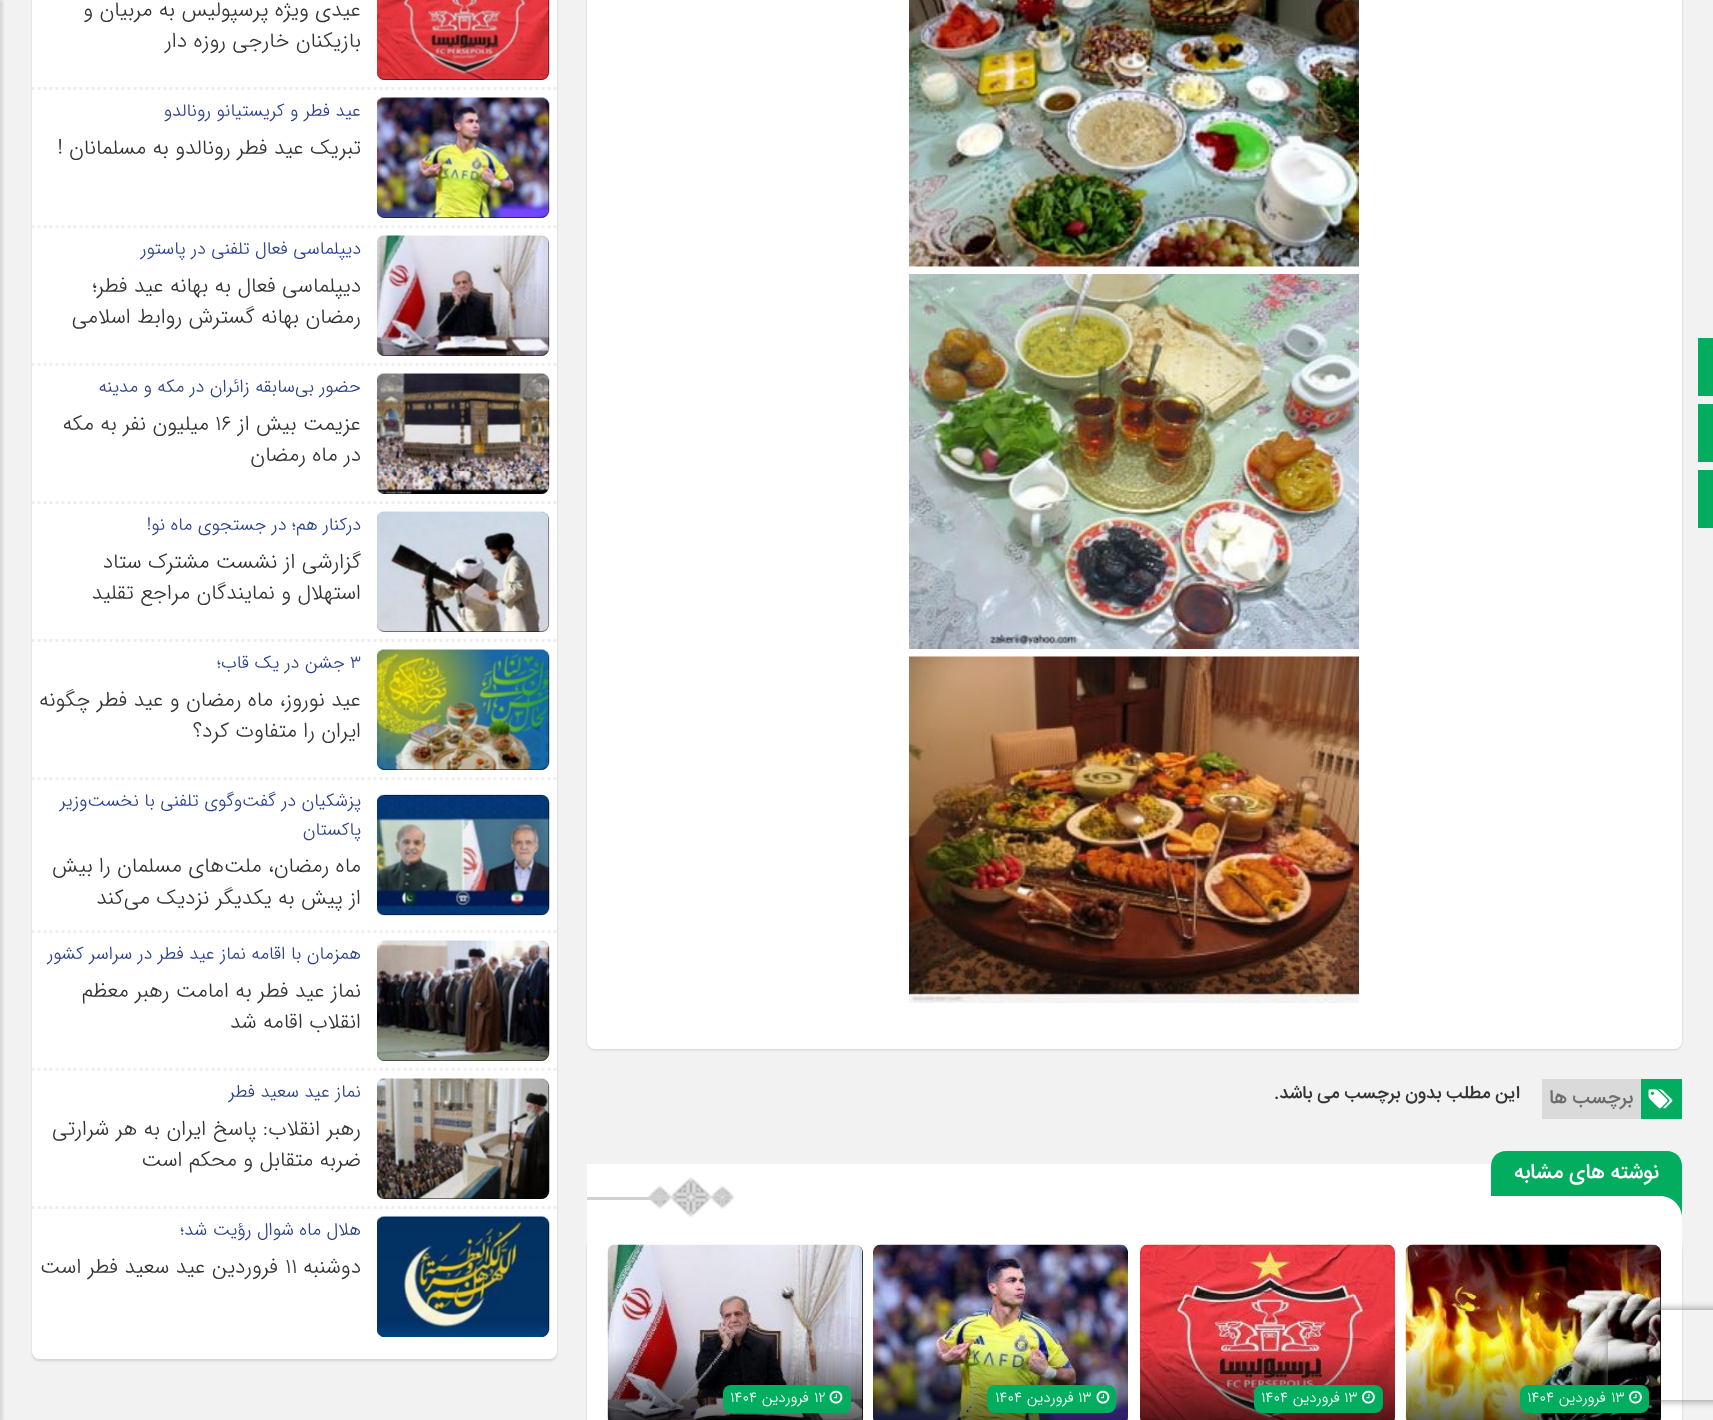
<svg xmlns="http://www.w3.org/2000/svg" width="1713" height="1420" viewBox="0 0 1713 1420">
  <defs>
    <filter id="blur1" x="-50%" y="-200%" width="200%" height="500%"><feGaussianBlur stdDeviation="1"/></filter>
    <clipPath id="clip1"><path d="M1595 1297H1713V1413H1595ZM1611 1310H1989C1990.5 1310 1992 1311.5 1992 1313V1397C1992 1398.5 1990.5 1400 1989 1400H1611C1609.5 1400 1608 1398.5 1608 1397V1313C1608 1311.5 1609.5 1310 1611 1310Z" clip-rule="evenodd"/></clipPath>
    <filter id="blur2" x="-50%" y="-200%" width="200%" height="500%"><feGaussianBlur stdDeviation="4"/></filter>
    <linearGradient id="g1" gradientUnits="userSpaceOnUse" x1="1533" y1="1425" x2="1533" y2="1347"><stop offset="0" stop-color="#000000" stop-opacity="0.66"/><stop offset="1" stop-color="#000000" stop-opacity="0"/></linearGradient>
    <linearGradient id="g2" gradientUnits="userSpaceOnUse" x1="1268" y1="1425" x2="1268" y2="1347"><stop offset="0" stop-color="#000000" stop-opacity="0.66"/><stop offset="1" stop-color="#000000" stop-opacity="0"/></linearGradient>
    <linearGradient id="g3" gradientUnits="userSpaceOnUse" x1="1001" y1="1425" x2="1001" y2="1347"><stop offset="0" stop-color="#000000" stop-opacity="0.66"/><stop offset="1" stop-color="#000000" stop-opacity="0"/></linearGradient>
    <linearGradient id="g4" gradientUnits="userSpaceOnUse" x1="735" y1="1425" x2="735" y2="1347"><stop offset="0" stop-color="#000000" stop-opacity="0.66"/><stop offset="1" stop-color="#000000" stop-opacity="0"/></linearGradient>
    <clipPath id="clip2"><rect x="32" y="0" width="525" height="1359"/></clipPath>
    <filter id="blur3" x="-50%" y="-200%" width="200%" height="500%"><feGaussianBlur stdDeviation="2"/></filter>
  </defs>
  <rect width="100%" height="100%" fill="#f2f2f2"/>
  <rect x="1698" y="338" width="15" height="58" fill="#03ad60"/>
  <rect x="1698" y="404" width="15" height="58" fill="#03ad60"/>
  <rect x="1698" y="470" width="15" height="58" fill="#03ad60"/>
  <rect x="587" y="-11" width="1095" height="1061" rx="8" fill="#1c2540" fill-opacity="0.16" filter="url(#blur1)"/>
  <path d="M587-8H1682V1041C1682 1045.5 1678.5 1049 1674 1049H595C590.5 1049 587 1045.5 587 1041Z" fill="#ffffff"/>
  <image x="909" y="0" width="450" height="267" href="img1.png"/>
  <image x="909" y="274" width="450" height="375" href="img2.png"/>
  <image x="909" y="656" width="450" height="347" href="img3.png"/>
  <rect x="1542" y="1079" width="99" height="40" fill="#dadada"/>
  <rect x="1641" y="1079" width="41" height="40" fill="#03ad60"/>
  <image x="1648" y="1089" width="25" height="20" href="img4.png"/>
  <text x="1633" y="1103" font-family="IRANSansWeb" font-size="19.5" font-weight="500" direction="rtl" fill="#6d6d6d">برچسب ها</text>
  <text x="1520" y="1098" font-family="IRANSansWeb" font-size="18" font-weight="500" direction="rtl" fill="#333333">این مطلب بدون برچسب می باشد.</text>
  <rect x="587" y="1164" width="1095" height="75" fill="#ffffff"/>
  <image x="647" y="1177" width="88" height="41" href="img5.png"/>
  <path d="M1506 1151H1667C1675.5 1151 1682 1157.5 1682 1166V1218H1491V1166C1491 1157.5 1497.5 1151 1506 1151Z" fill="#03ad60"/>
  <text x="1659" y="1178" font-family="IRANSansWeb" font-size="21" font-weight="500" direction="rtl" fill="#ffffff">نوشته های مشابه</text>
  <path d="M1491 1196H1660C1672 1196 1682 1206 1682 1218H1491Z" fill="#ffffff"/>
  <rect x="587" y="1197" width="81" height="3" fill="#d0d0d0"/>
  <rect x="587" y="1241" width="1095" height="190" rx="8" fill="#1c2540" fill-opacity="0.16" filter="url(#blur1)"/>
  <rect x="587" y="1239" width="1095" height="181" fill="#ffffff"/>
  <rect x="1406" y="1245" width="255" height="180" rx="8" fill="#000000"/>
  <image x="1405" y="1244" width="256" height="176" href="img6.png"/>
  <g clip-path="url(#clip1)">
    <rect x="1608" y="1310" width="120" height="90" rx="3" fill="#808080" filter="url(#blur2)"/>
  </g>
  <path d="M1406 1347H1661V1417C1661 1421.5 1657.5 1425 1653 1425H1414C1409.5 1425 1406 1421.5 1406 1417Z" fill="url(#g1)"/>
  <rect x="1520" y="1385" width="129" height="28" rx="8" fill="#03ad60"/>
  <image x="1629" y="1390" width="13" height="14" href="img7.png"/>
  <text x="1611" y="1402" font-family="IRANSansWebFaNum" font-size="15" font-weight="300" fill="#ffffff">۱۳</text>
  <text x="1606" y="1402" font-family="IRANSansWebFaNum" font-size="15" font-weight="300" direction="rtl" fill="#ffffff">فروردین</text>
  <text x="1527" y="1402" font-family="IRANSansWebFaNum" font-size="15" font-weight="300" fill="#ffffff">۱۴۰۴</text>
  <image x="1140" y="1244" width="255" height="176" href="img8.png"/>
  <path d="M1140 1347H1395V1417C1395 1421.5 1391.5 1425 1387 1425H1148C1143.5 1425 1140 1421.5 1140 1417Z" fill="url(#g2)"/>
  <rect x="1254" y="1385" width="129" height="28" rx="8" fill="#03ad60"/>
  <image x="1362" y="1390" width="13" height="14" href="img7.png"/>
  <text x="1344" y="1402" font-family="IRANSansWebFaNum" font-size="15" font-weight="300" fill="#ffffff">۱۳</text>
  <text x="1340" y="1402" font-family="IRANSansWebFaNum" font-size="15" font-weight="300" direction="rtl" fill="#ffffff">فروردین</text>
  <text x="1261" y="1402" font-family="IRANSansWebFaNum" font-size="15" font-weight="300" fill="#ffffff">۱۴۰۴</text>
  <image x="873" y="1244" width="255" height="176" href="img9.png"/>
  <path d="M873 1347H1128V1417C1128 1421.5 1124.5 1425 1120 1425H881C876.5 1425 873 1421.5 873 1417Z" fill="url(#g3)"/>
  <rect x="987" y="1385" width="129" height="28" rx="8" fill="#03ad60"/>
  <image x="1096" y="1390" width="14" height="14" href="img10.png"/>
  <text x="1078" y="1402" font-family="IRANSansWebFaNum" font-size="15" font-weight="300" fill="#ffffff">۱۳</text>
  <text x="1074" y="1402" font-family="IRANSansWebFaNum" font-size="15" font-weight="300" direction="rtl" fill="#ffffff">فروردین</text>
  <text x="995" y="1402" font-family="IRANSansWebFaNum" font-size="15" font-weight="300" fill="#ffffff">۱۴۰۴</text>
  <rect x="608" y="1245" width="255" height="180" rx="8" fill="#000000"/>
  <image x="607" y="1244" width="256" height="176" href="img11.png"/>
  <path d="M608 1347H863V1417C863 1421.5 859.5 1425 855 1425H616C611.5 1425 608 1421.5 608 1417Z" fill="url(#g4)"/>
  <rect x="723" y="1385" width="128" height="28" rx="8" fill="#03ad60"/>
  <image x="829" y="1390" width="14" height="14" href="img10.png"/>
  <text x="814" y="1402" font-family="IRANSansWebFaNum" font-size="15" font-weight="300" fill="#ffffff">۱۲</text>
  <text x="809" y="1402" font-family="IRANSansWebFaNum" font-size="15" font-weight="300" direction="rtl" fill="#ffffff">فروردین</text>
  <text x="730" y="1402" font-family="IRANSansWebFaNum" font-size="15" font-weight="300" fill="#ffffff">۱۴۰۴</text>
  <rect x="32" y="-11" width="525" height="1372" rx="8" fill="#1c2540" fill-opacity="0.16" filter="url(#blur1)"/>
  <path d="M32-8H557V1351C557 1355.5 553.5 1359 549 1359H40C35.5 1359 32 1355.5 32 1351Z" fill="#ffffff"/>
  <g clip-path="url(#clip2)">
    <path d="M31.5 88.5H556.5" fill="none" stroke="#eeeeee" stroke-width="3" stroke-dasharray="3 3"/>
  </g>
  <rect x="377" y="-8" width="172" height="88" rx="8" fill="#000000"/>
  <image x="377" y="0" width="173" height="80" href="img12.png"/>
  <text x="361" y="16" font-family="IRANSansWebFaNum" font-size="21" font-weight="300" direction="rtl" fill="#333333">عیدی ویژه پرسپولیس به مربیان و</text>
  <text x="361" y="47" font-family="IRANSansWebFaNum" font-size="21" font-weight="300" direction="rtl" fill="#333333">بازیکنان خارجی روزه دار</text>
  <g clip-path="url(#clip2)">
    <path d="M31.5 226.5H556.5" fill="none" stroke="#eeeeee" stroke-width="3" stroke-dasharray="3 3"/>
  </g>
  <rect x="377" y="98" width="172" height="120" rx="8" fill="#000000"/>
  <image x="377" y="97" width="173" height="121" href="img13.png"/>
  <text x="361" y="116" font-family="IRANSansWebFaNum" font-size="18" font-weight="300" direction="rtl" fill="#2b408a">عید فطر و کریستیانو رونالدو</text>
  <text x="361" y="154" font-family="IRANSansWebFaNum" font-size="21" font-weight="300" direction="rtl" fill="#333333">تبریک عید فطر رونالدو به مسلمانان !</text>
  <g clip-path="url(#clip2)">
    <path d="M31.5 364.5H556.5" fill="none" stroke="#eeeeee" stroke-width="3" stroke-dasharray="3 3"/>
  </g>
  <rect x="377" y="236" width="172" height="120" rx="8" fill="#000000"/>
  <image x="377" y="235" width="173" height="121" href="img14.png"/>
  <text x="361" y="254" font-family="IRANSansWebFaNum" font-size="18" font-weight="300" direction="rtl" fill="#2b408a">دیپلماسی فعال تلفنی در پاستور</text>
  <text x="361" y="292" font-family="IRANSansWebFaNum" font-size="21" font-weight="300" direction="rtl" fill="#333333">دیپلماسی فعال به بهانه عید فطر؛</text>
  <text x="361" y="323" font-family="IRANSansWebFaNum" font-size="21" font-weight="300" direction="rtl" fill="#333333">رمضان بهانه گسترش روابط اسلامی</text>
  <g clip-path="url(#clip2)">
    <path d="M31.5 502.5H556.5" fill="none" stroke="#eeeeee" stroke-width="3" stroke-dasharray="3 3"/>
  </g>
  <rect x="377" y="374" width="172" height="120" rx="8" fill="#000000"/>
  <image x="377" y="373" width="173" height="121" href="img15.png"/>
  <text x="361" y="392" font-family="IRANSansWebFaNum" font-size="18" font-weight="300" direction="rtl" fill="#2b408a">حضور بی‌سابقه زائران در مکه و مدینه</text>
  <text x="361" y="430" font-family="IRANSansWebFaNum" font-size="21" font-weight="300" direction="rtl" fill="#333333">عزیمت بیش از</text>
  <text x="215" y="430" font-family="IRANSansWebFaNum" font-size="21" font-weight="300" fill="#333333">۱۶</text>
  <text x="209" y="430" font-family="IRANSansWebFaNum" font-size="21" font-weight="300" direction="rtl" fill="#333333">میلیون نفر به مکه</text>
  <text x="361" y="461" font-family="IRANSansWebFaNum" font-size="21" font-weight="300" direction="rtl" fill="#333333">در ماه رمضان</text>
  <g clip-path="url(#clip2)">
    <path d="M31.5 640.5H556.5" fill="none" stroke="#eeeeee" stroke-width="3" stroke-dasharray="3 3"/>
  </g>
  <rect x="377" y="512" width="172" height="120" rx="8" fill="#000000"/>
  <image x="377" y="511" width="173" height="121" href="img16.png"/>
  <text x="361" y="530" font-family="IRANSansWebFaNum" font-size="18" font-weight="300" direction="rtl" fill="#2b408a">درکنار هم؛ در جستجوی ماه نو!</text>
  <text x="361" y="568" font-family="IRANSansWebFaNum" font-size="21" font-weight="300" direction="rtl" fill="#333333">گزارشی از نشست مشترک ستاد</text>
  <text x="361" y="599" font-family="IRANSansWebFaNum" font-size="21" font-weight="300" direction="rtl" fill="#333333">استهلال و نمایندگان مراجع تقلید</text>
  <g clip-path="url(#clip2)">
    <path d="M31.5 778.5H556.5" fill="none" stroke="#eeeeee" stroke-width="3" stroke-dasharray="3 3"/>
  </g>
  <rect x="377" y="650" width="172" height="120" rx="8" fill="#000000"/>
  <image x="377" y="649" width="173" height="121" href="img17.png"/>
  <text x="350" y="668" font-family="IRANSansWebFaNum" font-size="18" font-weight="300" fill="#2b408a">۳</text>
  <text x="345" y="668" font-family="IRANSansWebFaNum" font-size="18" font-weight="300" direction="rtl" fill="#2b408a">جشن در یک قاب؛</text>
  <text x="361" y="706" font-family="IRANSansWebFaNum" font-size="21" font-weight="300" direction="rtl" fill="#333333">عید نوروز، ماه رمضان و عید فطر چگونه</text>
  <text x="361" y="737" font-family="IRANSansWebFaNum" font-size="21" font-weight="300" direction="rtl" fill="#333333">ایران را متفاوت کرد؟</text>
  <g clip-path="url(#clip2)">
    <path d="M31.5 931.5H556.5" fill="none" stroke="#eeeeee" stroke-width="3" stroke-dasharray="3 3"/>
  </g>
  <rect x="377" y="795" width="172" height="120" rx="8" fill="#000000"/>
  <image x="377" y="794" width="173" height="122" href="img18.png"/>
  <text x="361" y="806" font-family="IRANSansWebFaNum" font-size="18" font-weight="300" direction="rtl" fill="#2b408a">پزشکیان در گفت‌وگوی تلفنی با نخست‌وزیر</text>
  <text x="361" y="835" font-family="IRANSansWebFaNum" font-size="18" font-weight="300" direction="rtl" fill="#2b408a">پاکستان</text>
  <text x="361" y="872" font-family="IRANSansWebFaNum" font-size="21" font-weight="300" direction="rtl" fill="#333333">ماه رمضان، ملت‌های مسلمان را بیش</text>
  <text x="361" y="904" font-family="IRANSansWebFaNum" font-size="21" font-weight="300" direction="rtl" fill="#333333">از پیش به یکدیگر نزدیک می‌کند</text>
  <g clip-path="url(#clip2)">
    <path d="M31.5 1069.5H556.5" fill="none" stroke="#eeeeee" stroke-width="3" stroke-dasharray="3 3"/>
  </g>
  <rect x="377" y="941" width="172" height="120" rx="8" fill="#000000"/>
  <image x="377" y="940" width="173" height="121" href="img19.png"/>
  <text x="361" y="959" font-family="IRANSansWebFaNum" font-size="18" font-weight="300" direction="rtl" fill="#2b408a">همزمان با اقامه نماز عید فطر در سراسر کشور</text>
  <text x="361" y="997" font-family="IRANSansWebFaNum" font-size="21" font-weight="300" direction="rtl" fill="#333333">نماز عید فطر به امامت رهبر معظم</text>
  <text x="361" y="1028" font-family="IRANSansWebFaNum" font-size="21" font-weight="300" direction="rtl" fill="#333333">انقلاب اقامه شد</text>
  <g clip-path="url(#clip2)">
    <path d="M31.5 1207.5H556.5" fill="none" stroke="#eeeeee" stroke-width="3" stroke-dasharray="3 3"/>
  </g>
  <rect x="377" y="1079" width="172" height="120" rx="8" fill="#000000"/>
  <image x="377" y="1078" width="173" height="121" href="img20.png"/>
  <text x="361" y="1097" font-family="IRANSansWebFaNum" font-size="18" font-weight="300" direction="rtl" fill="#2b408a">نماز عید سعید فطر</text>
  <text x="361" y="1135" font-family="IRANSansWebFaNum" font-size="21" font-weight="300" direction="rtl" fill="#333333">رهبر انقلاب: پاسخ ایران به هر شرارتی</text>
  <text x="361" y="1166" font-family="IRANSansWebFaNum" font-size="21" font-weight="300" direction="rtl" fill="#333333">ضربه متقابل و محکم است</text>
  <rect x="377" y="1217" width="172" height="120" rx="8" fill="#000000"/>
  <image x="377" y="1216" width="173" height="121" href="img21.png"/>
  <text x="361" y="1235" font-family="IRANSansWebFaNum" font-size="18" font-weight="300" direction="rtl" fill="#2b408a">هلال ماه شوال رؤیت شد؛</text>
  <text x="361" y="1273" font-family="IRANSansWebFaNum" font-size="21" font-weight="300" direction="rtl" fill="#333333">دوشنبه</text>
  <text x="285" y="1273" font-family="IRANSansWebFaNum" font-size="21" font-weight="300" fill="#333333">۱۱</text>
  <text x="278" y="1273" font-family="IRANSansWebFaNum" font-size="21" font-weight="300" direction="rtl" fill="#333333">فروردین عید سعید فطر است</text>
  <rect x="-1" y="-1" width="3" height="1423" fill="#000000" fill-opacity="0.2" filter="url(#blur3)"/>
</svg>
